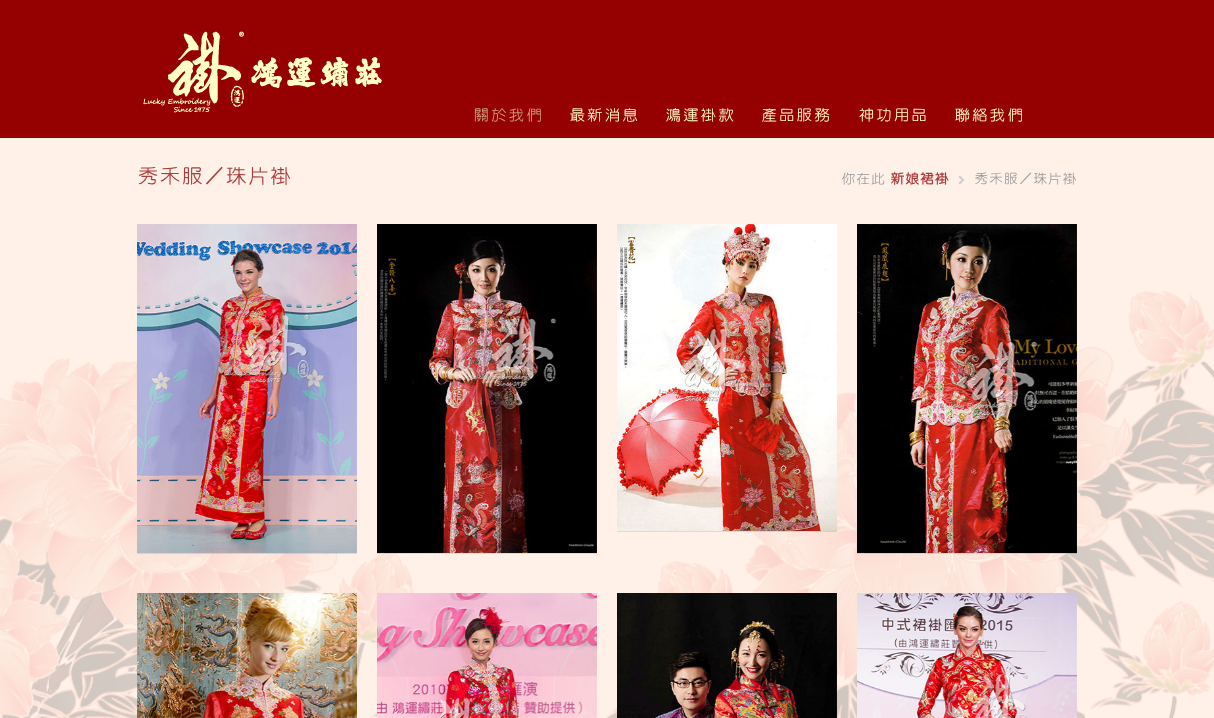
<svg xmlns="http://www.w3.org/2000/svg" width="1214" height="718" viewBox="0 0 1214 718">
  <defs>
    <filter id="blur1" x="-50%" y="-200%" width="200%" height="500%"><feGaussianBlur stdDeviation="0.5"/></filter>
  </defs>
  <rect width="100%" height="100%" fill="#fff1e8"/>
  <image x="0" y="291" width="1214" height="427" href="img1.png"/>
  <rect x="0" y="0" width="1214" height="138" fill="#950000"/>
  <image x="143" y="31" width="239" height="82" href="img2.png"/>
  <text x="473" y="121" font-family="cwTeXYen" font-size="18" font-weight="500" letter-spacing="1" fill="#cea07a">關於我們</text>
  <text x="569" y="121" font-family="cwTeXYen" font-size="18" font-weight="500" letter-spacing="1" fill="#ffffc6">最新消息</text>
  <text x="665" y="121" font-family="cwTeXYen" font-size="18" font-weight="500" letter-spacing="1" fill="#ffffc6">鴻運褂款</text>
  <text x="761" y="121" font-family="cwTeXYen" font-size="18" font-weight="500" letter-spacing="1" fill="#ffffc6">產品服務</text>
  <text x="858" y="121" font-family="cwTeXYen" font-size="18" font-weight="500" letter-spacing="1" fill="#ffffc6">神功用品</text>
  <text x="954" y="121" font-family="cwTeXYen" font-size="18" font-weight="500" letter-spacing="1" fill="#ffffc6">聯絡我們</text>
  <text x="137" y="184" font-family="cwTeXYen" font-size="24" font-weight="500" fill="#ad3b3b">秀禾服／珠片褂</text>
  <text x="841" y="184" font-family="cwTeXYen" font-size="16" font-weight="500" fill="#999999">你在此</text>
  <text x="890" y="184" font-family="cwTeXYen" font-size="16" font-weight="bold" fill="#ad3b3b">新娘裙褂</text>
  <image x="958" y="175" width="6" height="10" href="img3.png"/>
  <text x="974" y="184" font-family="cwTeXYen" font-size="16" font-weight="500" fill="#999999">秀禾服／珠片褂</text>
  <rect x="137" y="225" width="220" height="329" fill="#000000" fill-opacity="0.1" filter="url(#blur1)"/>
  <image x="137" y="224" width="220" height="329" href="img4.png"/>
  <rect x="377" y="225" width="220" height="329" fill="#000000" fill-opacity="0.1" filter="url(#blur1)"/>
  <image x="377" y="224" width="220" height="329" href="img5.png"/>
  <rect x="617" y="225" width="220" height="307" fill="#000000" fill-opacity="0.1" filter="url(#blur1)"/>
  <image x="617" y="224" width="220" height="307" href="img6.png"/>
  <rect x="857" y="225" width="220" height="329" fill="#000000" fill-opacity="0.1" filter="url(#blur1)"/>
  <image x="857" y="224" width="220" height="329" href="img7.png"/>
  <image x="137" y="593" width="220" height="125" href="img8.png"/>
  <image x="377" y="593" width="220" height="125" href="img9.png"/>
  <image x="617" y="593" width="220" height="125" href="img10.png"/>
  <image x="857" y="593" width="220" height="125" href="img11.png"/>
</svg>
